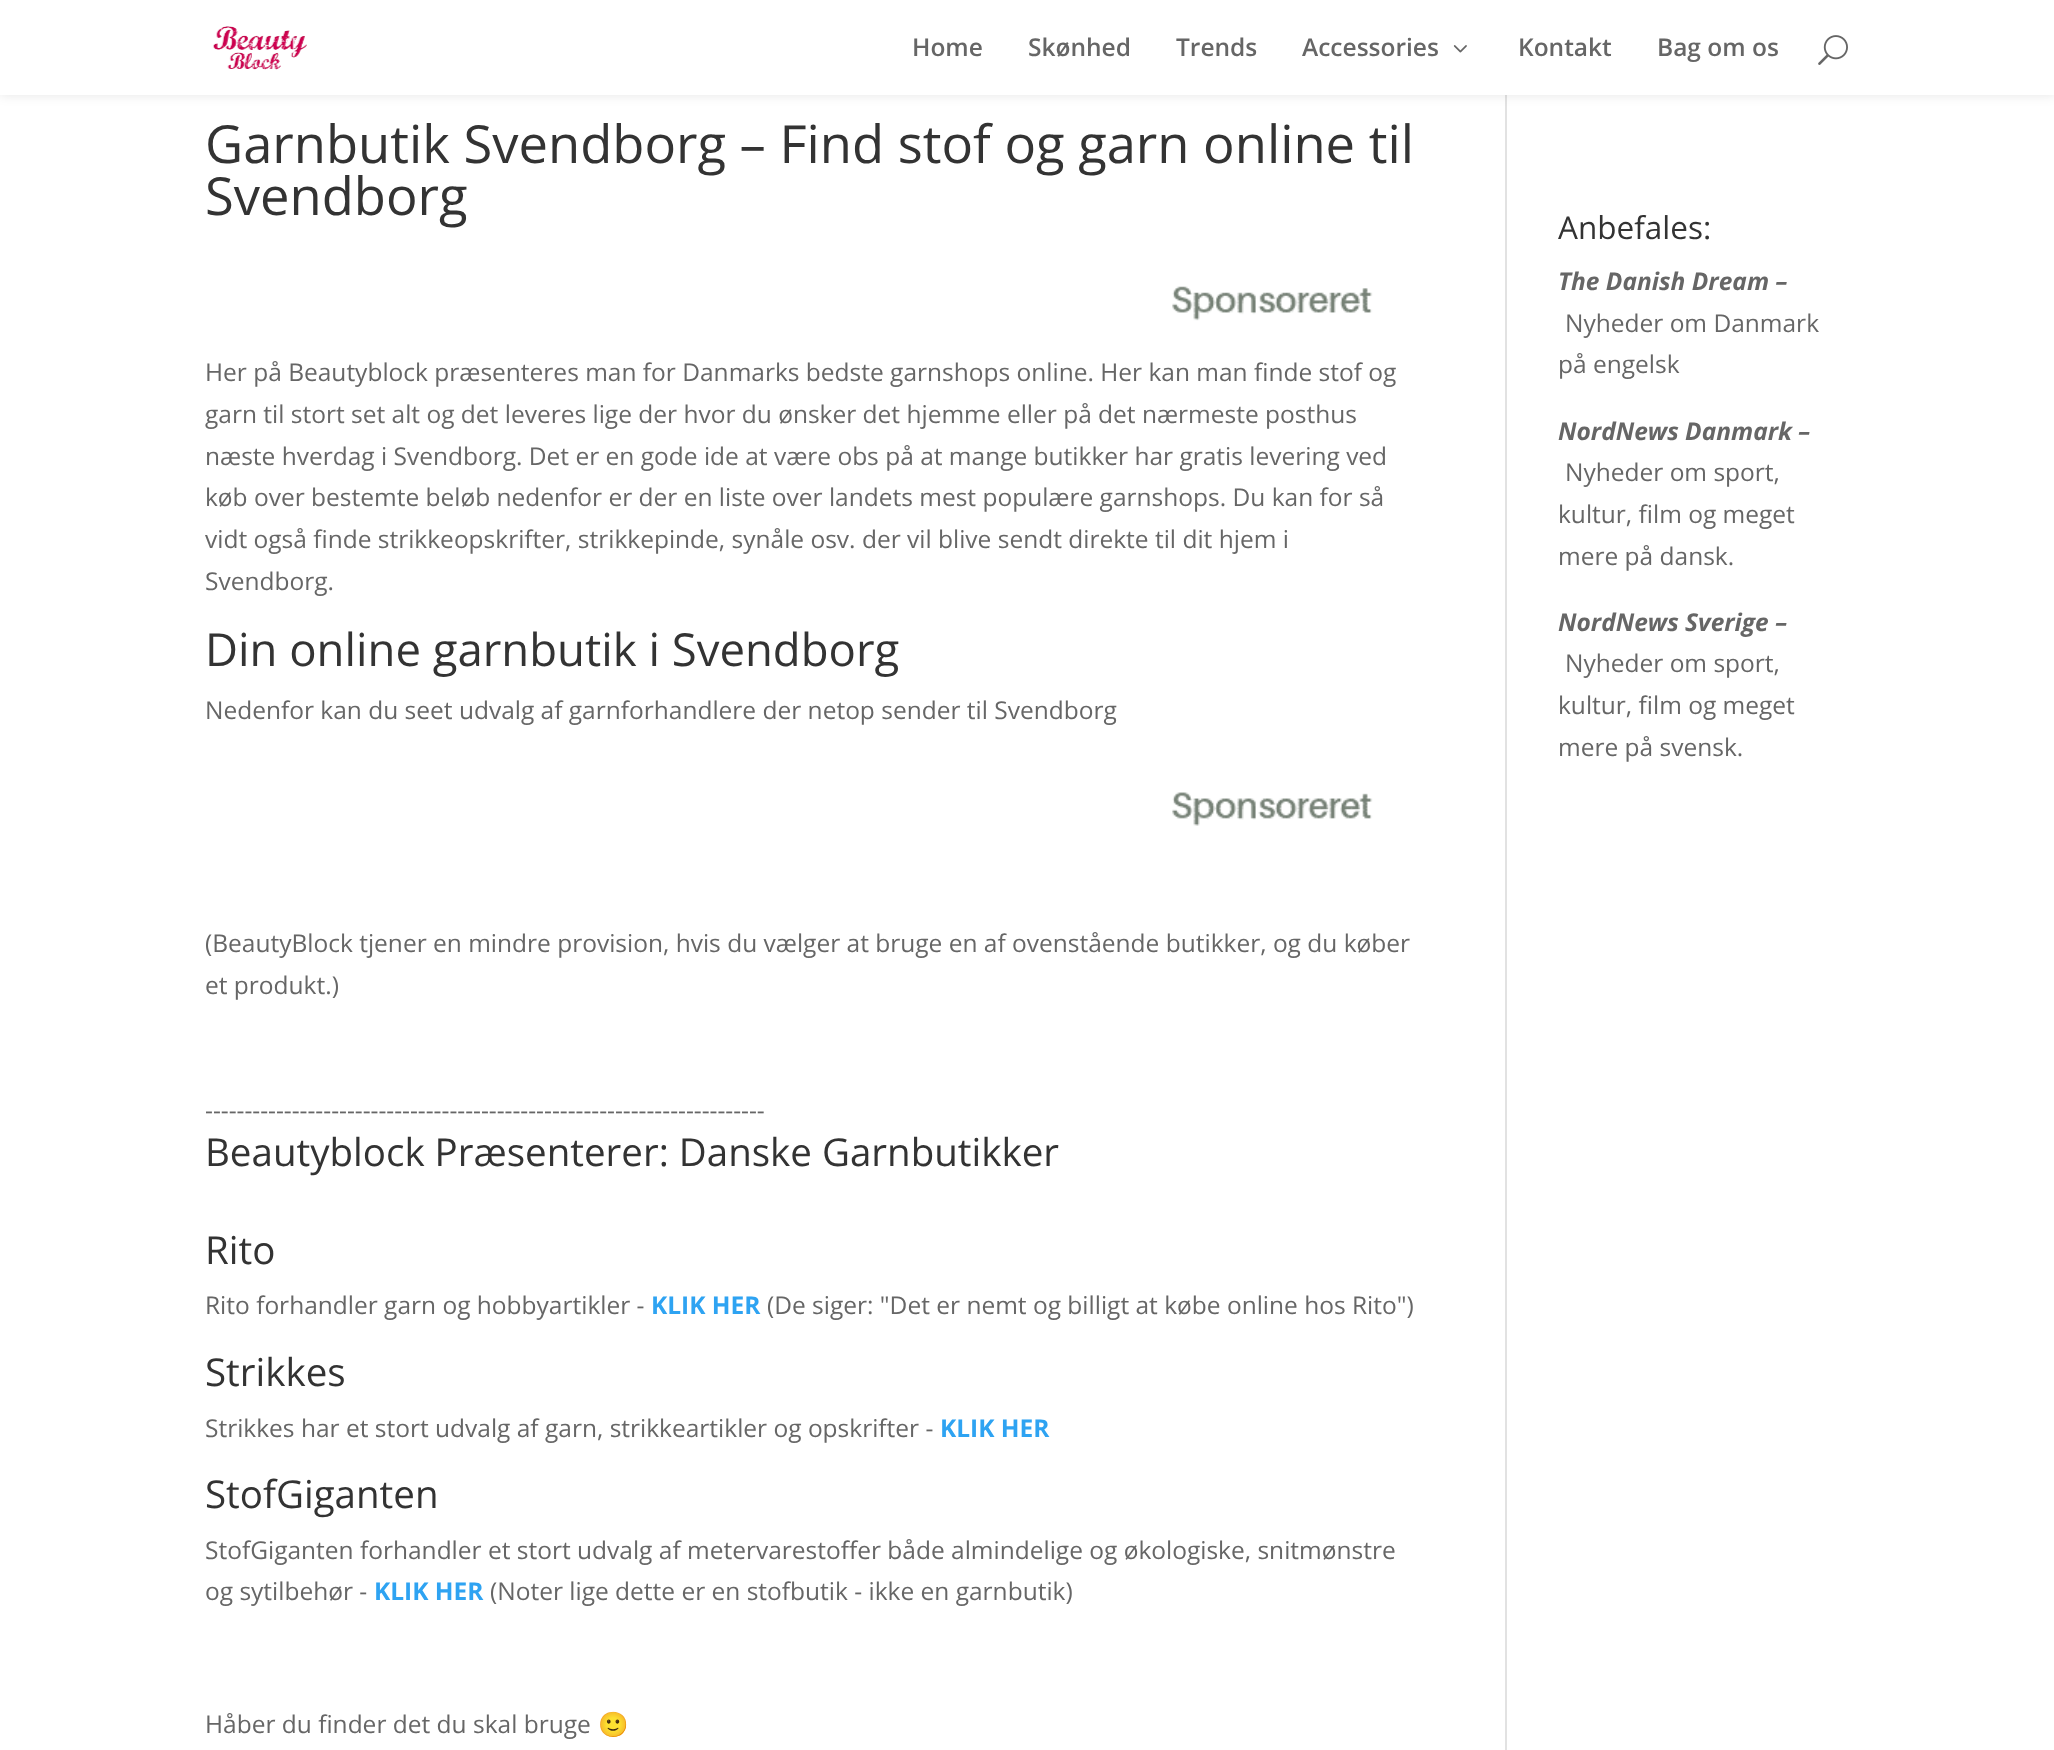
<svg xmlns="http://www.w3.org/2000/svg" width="2054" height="1750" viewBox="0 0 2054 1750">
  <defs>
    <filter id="blur1" x="-50%" y="-200%" width="200%" height="500%"><feGaussianBlur stdDeviation="6"/></filter>
  </defs>
  <rect width="100%" height="100%" fill="#ffffff"/>
  <rect x="1505" y="95" width="2" height="1655" fill="#e2e2e2"/>
  <rect x="0" y="0" width="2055" height="95" fill="#000000" fill-opacity="0.1" filter="url(#blur1)"/>
  <rect x="0" y="0" width="2054" height="95" fill="#ffffff"/>
  <image x="213" y="26" width="94" height="44" href="img1.png"/>
  <text x="912" y="56" font-family="Open Sans" font-size="24.5" font-weight="600" fill="#666666">Home</text>
  <text x="1028" y="56" font-family="Open Sans" font-size="24.5" font-weight="600" fill="#666666">Skønhed</text>
  <text x="1176" y="56" font-family="Open Sans" font-size="24.5" font-weight="600" fill="#666666">Trends</text>
  <text x="1302" y="56" font-family="Open Sans" font-size="24.5" font-weight="600" fill="#666666">Accessories</text>
  <image x="1453" y="45" width="14" height="8" href="img2.png"/>
  <text x="1518" y="56" font-family="Open Sans" font-size="24.5" font-weight="600" fill="#666666">Kontakt</text>
  <text x="1657" y="56" font-family="Open Sans" font-size="24.5" font-weight="600" fill="#666666">Bag om os</text>
  <image x="1818" y="35" width="30" height="30" href="img3.png"/>
  <text x="205" y="163" font-family="Open Sans" font-size="52.5" fill="#333333">Garnbutik Svendborg – Find stof og garn online til</text>
  <text x="205" y="215" font-family="Open Sans" font-size="52.5" fill="#333333">Svendborg</text>
  <image x="1172" y="286" width="201" height="35" href="img4.png"/>
  <text x="205" y="381" font-family="Open Sans" font-size="24.5" fill="#666666">Her på Beautyblock præsenteres man for Danmarks bedste garnshops online. Her kan man finde stof og</text>
  <text x="205" y="423" font-family="Open Sans" font-size="24.5" fill="#666666">garn til stort set alt og det leveres lige der hvor du ønsker det hjemme eller på det nærmeste posthus</text>
  <text x="205" y="465" font-family="Open Sans" font-size="24.5" fill="#666666">næste hverdag i Svendborg. Det er en gode ide at være obs på at mange butikker har gratis levering ved</text>
  <text x="205" y="506" font-family="Open Sans" font-size="24.5" fill="#666666">køb over bestemte beløb nedenfor er der en liste over landets mest populære garnshops. Du kan for så</text>
  <text x="205" y="548" font-family="Open Sans" font-size="24.5" fill="#666666">vidt også finde strikkeopskrifter, strikkepinde, synåle osv. der vil blive sendt direkte til dit hjem i</text>
  <text x="205" y="590" font-family="Open Sans" font-size="24.5" fill="#666666">Svendborg.</text>
  <text x="205" y="666" font-family="Open Sans" font-size="45.5" fill="#333333">Din online garnbutik i Svendborg</text>
  <text x="205" y="719" font-family="Open Sans" font-size="24.5" fill="#666666">Nedenfor kan du seet udvalg af garnforhandlere der netop sender til Svendborg</text>
  <image x="1172" y="792" width="201" height="34" href="img5.png"/>
  <text x="205" y="952" font-family="Open Sans" font-size="24.5" fill="#666666">(BeautyBlock tjener en mindre provision, hvis du vælger at bruge en af ovenstående butikker, og du køber</text>
  <text x="205" y="994" font-family="Open Sans" font-size="24.5" fill="#666666">et produkt.)</text>
  <text x="205" y="1119" font-family="Open Sans" font-size="24.5" fill="#666666">-----------------------------------------------------------------------</text>
  <text x="205" y="1166" font-family="Open Sans" font-size="38.5" fill="#333333">Beautyblock Præsenterer: Danske Garnbutikker</text>
  <text x="205" y="1264" font-family="Open Sans" font-size="38.5" fill="#333333">Rito</text>
  <text x="205" y="1314" font-family="Open Sans" font-size="24.5" fill="#666666">Rito forhandler garn og hobbyartikler -</text>
  <text x="651" y="1314" font-family="Open Sans" font-size="24.5" font-weight="bold" fill="#2ea3f2">KLIK HER</text>
  <text x="767" y="1314" font-family="Open Sans" font-size="24.5" fill="#666666">(De siger: "Det er nemt og billigt at købe online hos Rito")</text>
  <text x="205" y="1386" font-family="Open Sans" font-size="38.5" fill="#333333">Strikkes</text>
  <text x="205" y="1437" font-family="Open Sans" font-size="24.5" fill="#666666">Strikkes har et stort udvalg af garn, strikkeartikler og opskrifter -</text>
  <text x="940" y="1437" font-family="Open Sans" font-size="24.5" font-weight="bold" fill="#2ea3f2">KLIK HER</text>
  <text x="205" y="1508" font-family="Open Sans" font-size="38.5" fill="#333333">StofGiganten</text>
  <text x="205" y="1559" font-family="Open Sans" font-size="24.5" fill="#666666">StofGiganten forhandler et stort udvalg af metervarestoffer både almindelige og økologiske, snitmønstre</text>
  <text x="205" y="1600" font-family="Open Sans" font-size="24.5" fill="#666666">og sytilbehør -</text>
  <text x="374" y="1600" font-family="Open Sans" font-size="24.5" font-weight="bold" fill="#2ea3f2">KLIK HER</text>
  <text x="490" y="1600" font-family="Open Sans" font-size="24.5" fill="#666666">(Noter lige dette er en stofbutik - ikke en garnbutik)</text>
  <text x="205" y="1733" font-family="Open Sans" font-size="24.5" fill="#666666">Håber du finder det du skal bruge</text>
  <text x="598" y="1733" font-family="Noto Color Emoji" font-size="24.5" fill="#666666">🙂</text>
  <text x="1558" y="239" font-family="Open Sans" font-size="31.5" fill="#333333">Anbefales:</text>
  <text x="1558" y="290" font-family="Open Sans" font-size="24.5" font-weight="bold" font-style="italic" fill="#666666">The Danish Dream –</text>
  <text x="1565" y="332" font-family="Open Sans" font-size="24.5" fill="#666666">Nyheder om Danmark</text>
  <text x="1558" y="373" font-family="Open Sans" font-size="24.5" fill="#666666">på engelsk</text>
  <text x="1558" y="440" font-family="Open Sans" font-size="24.5" font-weight="bold" font-style="italic" fill="#666666">NordNews Danmark –</text>
  <text x="1565" y="481" font-family="Open Sans" font-size="24.5" fill="#666666">Nyheder om sport,</text>
  <text x="1558" y="523" font-family="Open Sans" font-size="24.5" fill="#666666">kultur, film og meget</text>
  <text x="1558" y="565" font-family="Open Sans" font-size="24.5" fill="#666666">mere på dansk.</text>
  <text x="1558" y="631" font-family="Open Sans" font-size="24.5" font-weight="bold" font-style="italic" fill="#666666">NordNews Sverige –</text>
  <text x="1565" y="672" font-family="Open Sans" font-size="24.5" fill="#666666">Nyheder om sport,</text>
  <text x="1558" y="714" font-family="Open Sans" font-size="24.5" fill="#666666">kultur, film og meget</text>
  <text x="1558" y="756" font-family="Open Sans" font-size="24.5" fill="#666666">mere på svensk.</text>
</svg>
